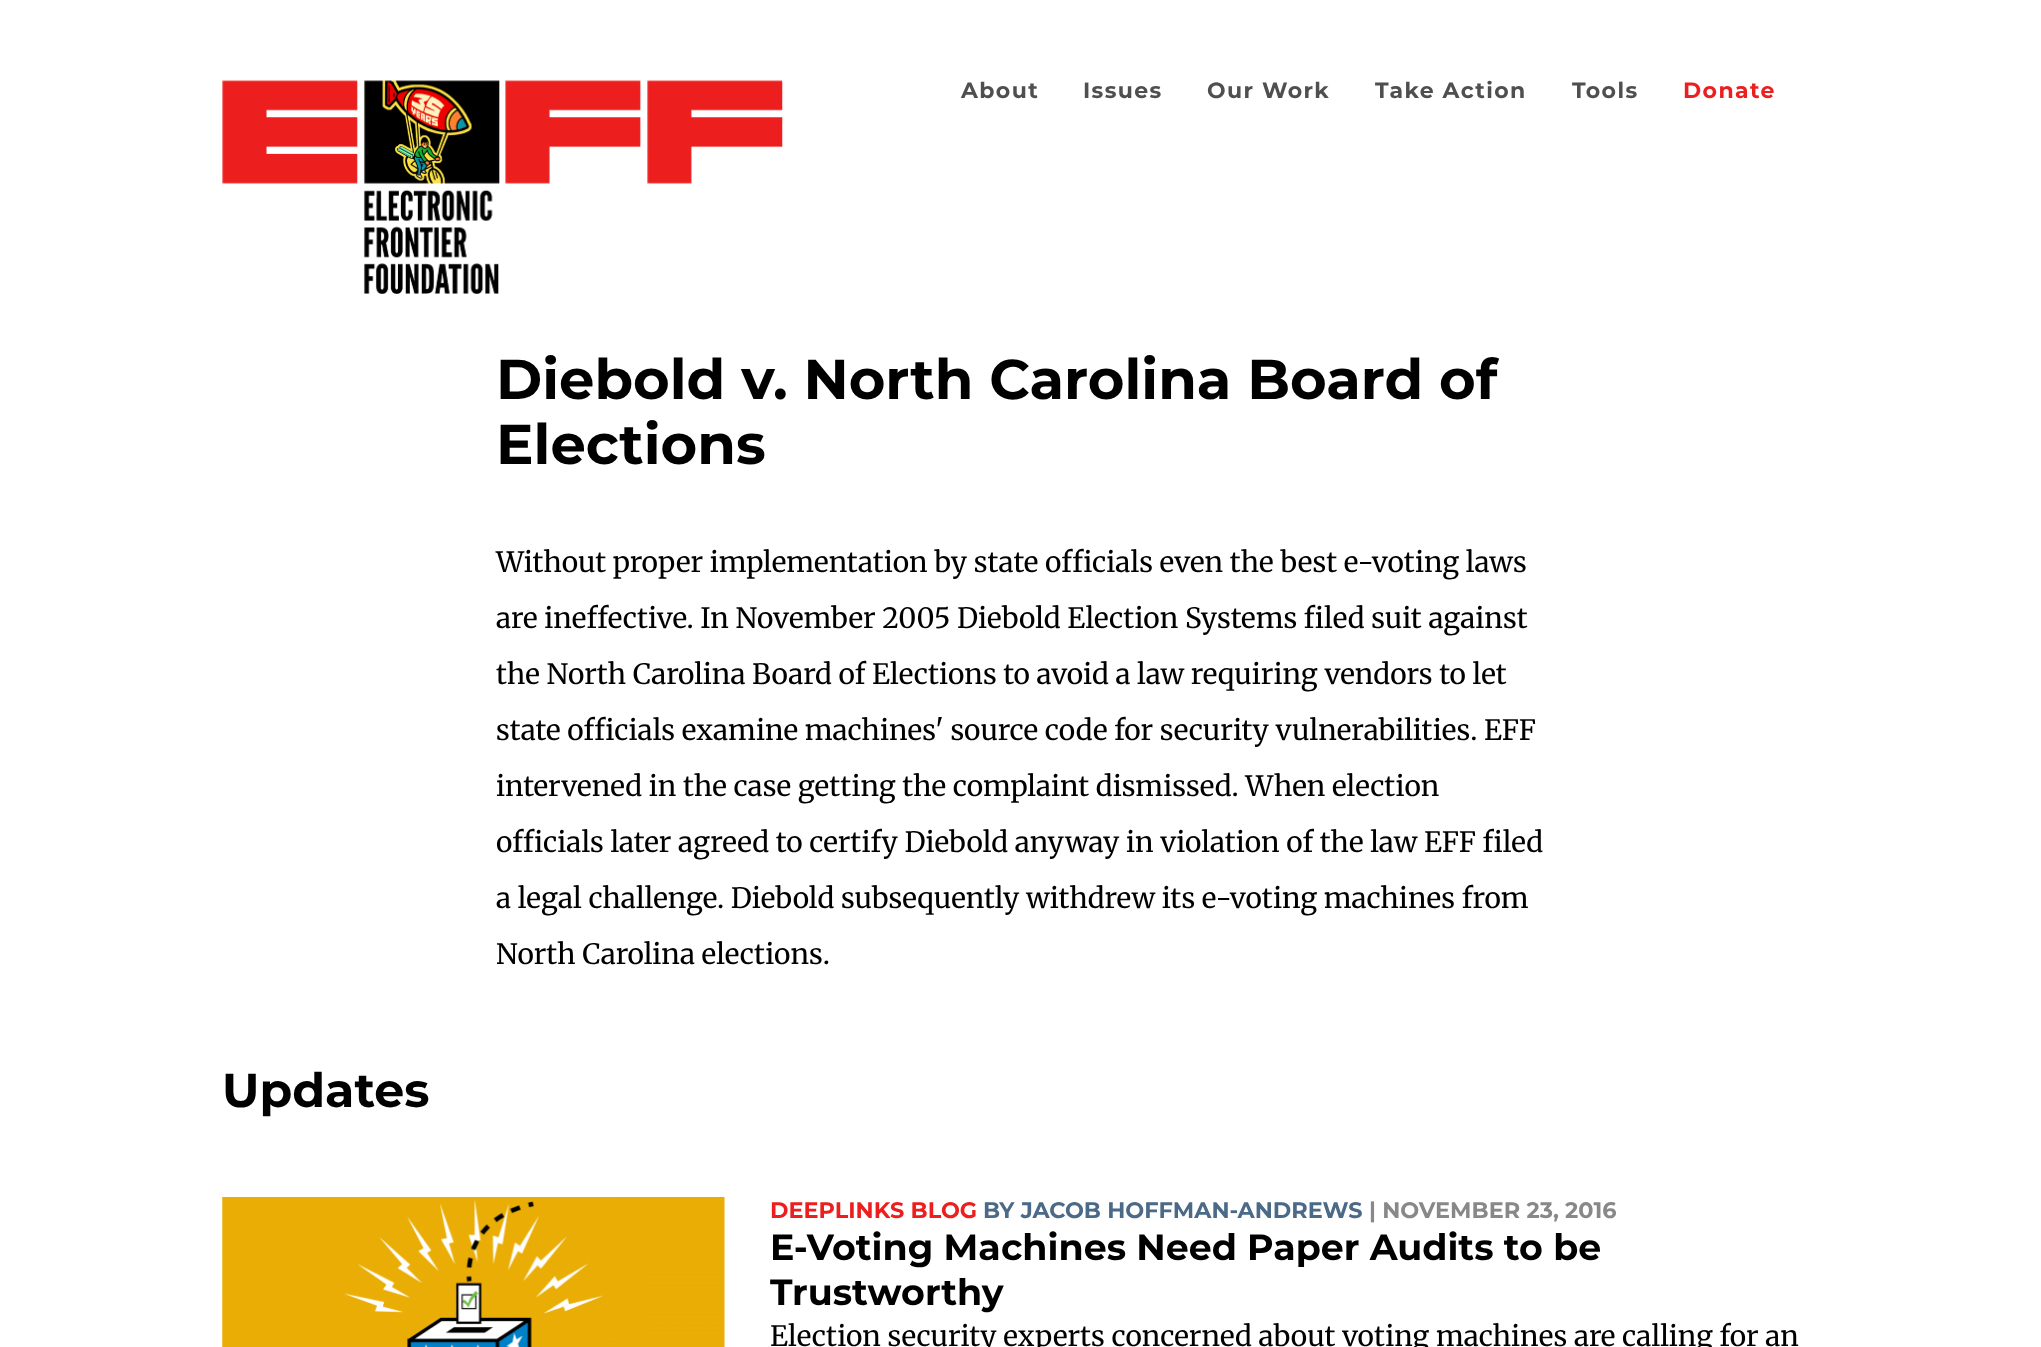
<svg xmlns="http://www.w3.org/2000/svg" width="2041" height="1347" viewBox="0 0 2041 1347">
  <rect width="100%" height="100%" fill="#ffffff"/>
  <image x="222" y="80" width="561" height="214" href="img1.png"/>
  <text x="961" y="98" font-family="Montserrat" font-size="22" font-weight="bold" letter-spacing="1.4" fill="#4f4f4f">About</text>
  <text x="1083" y="98" font-family="Montserrat" font-size="22" font-weight="bold" letter-spacing="1.4" fill="#4f4f4f">Issues</text>
  <text x="1207" y="98" font-family="Montserrat" font-size="22" font-weight="bold" letter-spacing="1.4" fill="#4f4f4f">Our Work</text>
  <text x="1375" y="98" font-family="Montserrat" font-size="22" font-weight="bold" letter-spacing="1.4" fill="#4f4f4f">Take Action</text>
  <text x="1572" y="98" font-family="Montserrat" font-size="22" font-weight="bold" letter-spacing="1.4" fill="#4f4f4f">Tools</text>
  <text x="1683" y="98" font-family="Montserrat" font-size="22" font-weight="bold" letter-spacing="1.4" fill="#ec1e1e">Donate</text>
  <text x="496" y="399" font-family="Montserrat" font-size="56" font-weight="bold" fill="#000000">Diebold v. North Carolina Board of</text>
  <text x="496" y="464" font-family="Montserrat" font-size="56" font-weight="bold" fill="#000000">Elections</text>
  <text x="496" y="572" font-family="Merriweather" font-size="28" fill="#000000">Without proper implementation by state officials even the best e-voting laws</text>
  <text x="496" y="628" font-family="Merriweather" font-size="28" fill="#000000">are ineffective. In November 2005 Diebold Election Systems filed suit against</text>
  <text x="496" y="684" font-family="Merriweather" font-size="28" fill="#000000">the North Carolina Board of Elections to avoid a law requiring vendors to let</text>
  <text x="496" y="740" font-family="Merriweather" font-size="28" fill="#000000">state officials examine machines' source code for security vulnerabilities. EFF</text>
  <text x="496" y="796" font-family="Merriweather" font-size="28" fill="#000000">intervened in the case getting the complaint dismissed. When election</text>
  <text x="496" y="852" font-family="Merriweather" font-size="28" fill="#000000">officials later agreed to certify Diebold anyway in violation of the law EFF filed</text>
  <text x="496" y="908" font-family="Merriweather" font-size="28" fill="#000000">a legal challenge. Diebold subsequently withdrew its e-voting machines from</text>
  <text x="496" y="964" font-family="Merriweather" font-size="28" fill="#000000">North Carolina elections.</text>
  <text x="222" y="1107" font-family="Montserrat" font-size="47.5" font-weight="bold" fill="#000000">Updates</text>
  <image x="222" y="1197" width="503" height="150" href="img2.png"/>
  <text x="770" y="1218" font-family="Montserrat" font-size="22.4" font-weight="bold" fill="#ec1e1e">DEEPLINKS BLOG</text>
  <text x="983" y="1218" font-family="Montserrat" font-size="22.4" font-weight="bold" fill="#4b6a88">BY JACOB HOFFMAN-ANDREWS</text>
  <text x="1369" y="1218" font-family="Montserrat" font-size="22.4" font-weight="bold" fill="#888888">| NOVEMBER 23, 2016</text>
  <text x="770" y="1260" font-family="Montserrat" font-size="36.4" font-weight="bold" fill="#000000">E-Voting Machines Need Paper Audits to be</text>
  <text x="770" y="1305" font-family="Montserrat" font-size="36.4" font-weight="bold" fill="#000000">Trustworthy</text>
  <text x="770" y="1346" font-family="Merriweather" font-size="28" fill="#000000">Election security experts concerned about voting machines are calling for an</text>
</svg>
